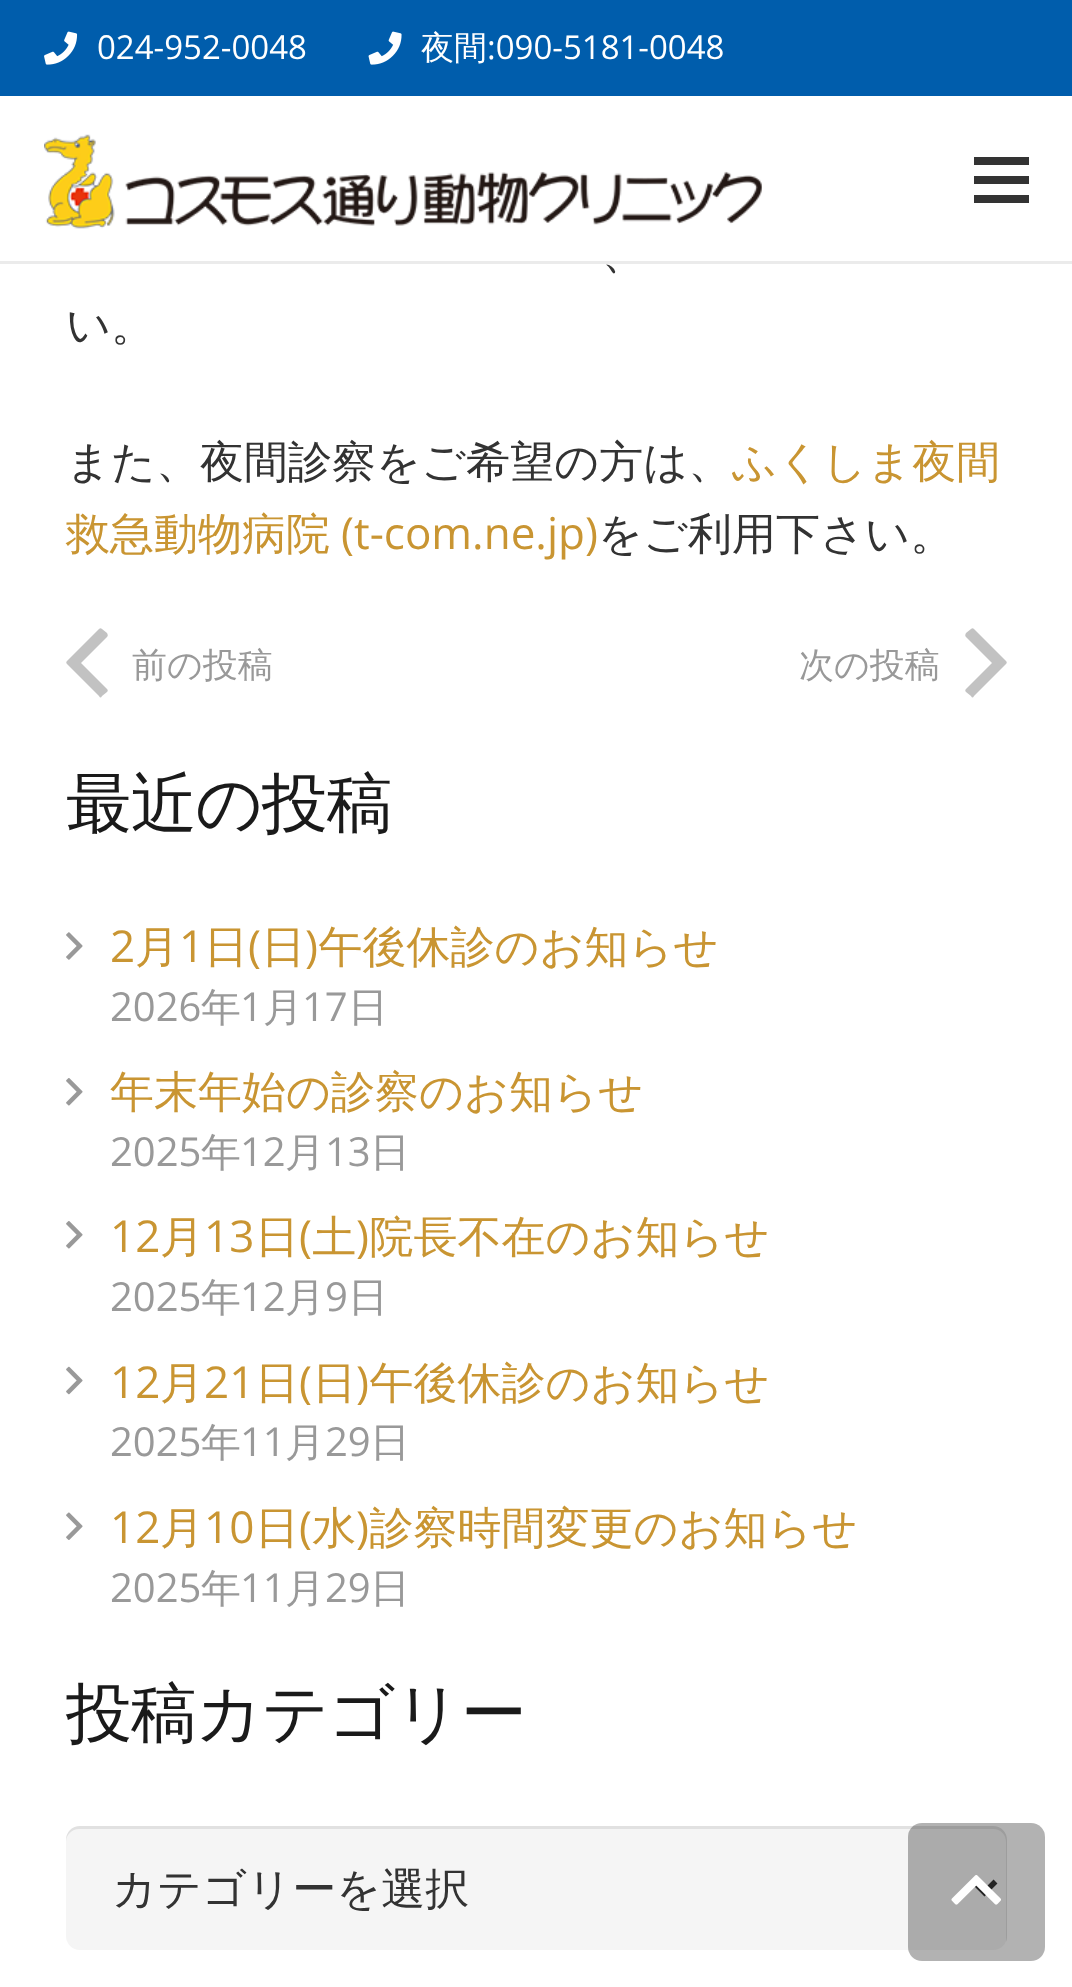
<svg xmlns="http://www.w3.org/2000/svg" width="1072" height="1987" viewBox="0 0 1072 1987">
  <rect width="100%" height="100%" fill="#ffffff"/>
  <rect x="0" y="0" width="1072" height="96" fill="#005dac"/>
  <image x="44" y="31" width="34" height="34" href="img1.png"/>
  <text x="97" y="59" font-family="Open Sans" font-size="33" fill="#ffffff">024-952-0048</text>
  <image x="368" y="31" width="34" height="34" href="img2.png"/>
  <text x="421" y="59" font-family="WenQuanYi Zen Hei" font-size="33" font-weight="500" fill="#ffffff">夜間</text>
  <text x="487" y="59" font-family="Open Sans" font-size="33" fill="#ffffff">:090-5181-0048</text>
  <path d="M0 261V264H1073V99H1072V261Z" fill="#000000" fill-opacity="0.08"/>
  <image x="44" y="134" width="718" height="95" href="img3.png"/>
  <rect x="974" y="176" width="55" height="8" fill="#333333"/>
  <rect x="974" y="157" width="55" height="8" fill="#333333"/>
  <rect x="974" y="195" width="55" height="8" fill="#333333"/>
  <text x="602" y="268" font-family="WenQuanYi Zen Hei" font-size="44" font-weight="500" fill="#333333">、</text>
  <text x="66" y="340" font-family="WenQuanYi Zen Hei" font-size="44" font-weight="500" fill="#333333">い。</text>
  <text x="66" y="477" font-family="WenQuanYi Zen Hei" font-size="44" font-weight="500" fill="#333333">また、夜間診察をご希望の方は、</text>
  <text x="732" y="477" font-family="WenQuanYi Zen Hei" font-size="44" font-weight="500" fill="#c99532">ふくしま夜間</text>
  <text x="66" y="549" font-family="WenQuanYi Zen Hei" font-size="44" font-weight="500" fill="#c99532">救急動物病院</text>
  <text x="341" y="549" font-family="Open Sans" font-size="44" fill="#c99532">(t-com.ne.jp)</text>
  <text x="598" y="549" font-family="WenQuanYi Zen Hei" font-size="44" font-weight="500" fill="#333333">をご利用下さい。</text>
  <path d="M67 661L99 629C100 628 101 628 102 629L107 633C108 635 108 636 107 637L81 663L107 689C108 690 108 691 107 692L102 696C101 698 100 698 99 696L67 664C66 663 66 662 67 661Z" fill="#c2c2c2"/>
  <text x="132" y="677" font-family="WenQuanYi Zen Hei" font-size="35" font-weight="500" fill="#999999">前の投稿</text>
  <text x="799" y="677" font-family="WenQuanYi Zen Hei" font-size="35" font-weight="500" fill="#999999">次の投稿</text>
  <path d="M1006 664L974 696C973 698 972 698 971 696L966 692C965 691 965 690 966 689L992 663L966 637C965 636 965 635 966 633L971 629C972 628 973 628 974 629L1006 661C1007 662 1007 663 1006 664Z" fill="#c2c2c2"/>
  <text x="66" y="826" font-family="WenQuanYi Zen Hei" font-size="66" font-weight="500" letter-spacing="-1.25" fill="#1a1a1a">最近の投稿</text>
  <text x="110" y="962" font-family="Open Sans" font-size="44" fill="#c99532">2</text>
  <text x="135" y="962" font-family="WenQuanYi Zen Hei" font-size="44" font-weight="500" fill="#c99532">月</text>
  <text x="179" y="962" font-family="Open Sans" font-size="44" fill="#c99532">1</text>
  <text x="204" y="962" font-family="WenQuanYi Zen Hei" font-size="44" font-weight="500" fill="#c99532">日 日 午後休診のお知らせ</text>
  <image x="66" y="932" width="17" height="28" href="img4.png"/>
  <text x="248" y="962" font-family="Open Sans" font-size="44" fill="#c99532">(</text>
  <text x="305" y="962" font-family="Open Sans" font-size="44" fill="#c99532">)</text>
  <text x="110" y="1021" font-family="Open Sans" font-size="40" fill="#999999">2026</text>
  <text x="201" y="1021" font-family="WenQuanYi Zen Hei" font-size="40" font-weight="500" fill="#999999">年</text>
  <text x="240" y="1021" font-family="Open Sans" font-size="40" fill="#999999">1</text>
  <text x="263" y="1021" font-family="WenQuanYi Zen Hei" font-size="40" font-weight="500" fill="#999999">月</text>
  <text x="302" y="1021" font-family="Open Sans" font-size="40" fill="#999999">17</text>
  <text x="348" y="1021" font-family="WenQuanYi Zen Hei" font-size="40" font-weight="500" fill="#999999">日</text>
  <image x="66" y="1078" width="17" height="28" href="img5.png"/>
  <text x="110" y="1107" font-family="WenQuanYi Zen Hei" font-size="44" font-weight="500" fill="#c99532">年末年始の診察のお知らせ</text>
  <text x="110" y="1166" font-family="Open Sans" font-size="40" fill="#999999">2025</text>
  <text x="201" y="1166" font-family="WenQuanYi Zen Hei" font-size="40" font-weight="500" fill="#999999">年</text>
  <text x="240" y="1166" font-family="Open Sans" font-size="40" fill="#999999">12</text>
  <text x="285" y="1166" font-family="WenQuanYi Zen Hei" font-size="40" font-weight="500" fill="#999999">月</text>
  <text x="325" y="1166" font-family="Open Sans" font-size="40" fill="#999999">13</text>
  <text x="370" y="1166" font-family="WenQuanYi Zen Hei" font-size="40" font-weight="500" fill="#999999">日</text>
  <text x="110" y="1252" font-family="Open Sans" font-size="44" fill="#c99532">12</text>
  <text x="160" y="1252" font-family="WenQuanYi Zen Hei" font-size="44" font-weight="500" fill="#c99532">月</text>
  <text x="204" y="1252" font-family="Open Sans" font-size="44" fill="#c99532">13</text>
  <text x="255" y="1252" font-family="WenQuanYi Zen Hei" font-size="44" font-weight="500" fill="#c99532">日 土 院長不在のお知らせ</text>
  <image x="66" y="1221" width="17" height="28" href="img5.png"/>
  <text x="299" y="1252" font-family="Open Sans" font-size="44" fill="#c99532">(</text>
  <text x="356" y="1252" font-family="Open Sans" font-size="44" fill="#c99532">)</text>
  <text x="110" y="1311" font-family="Open Sans" font-size="40" fill="#999999">2025</text>
  <text x="201" y="1311" font-family="WenQuanYi Zen Hei" font-size="40" font-weight="500" fill="#999999">年</text>
  <text x="240" y="1311" font-family="Open Sans" font-size="40" fill="#999999">12</text>
  <text x="285" y="1311" font-family="WenQuanYi Zen Hei" font-size="40" font-weight="500" fill="#999999">月</text>
  <text x="325" y="1311" font-family="Open Sans" font-size="40" fill="#999999">9</text>
  <text x="348" y="1311" font-family="WenQuanYi Zen Hei" font-size="40" font-weight="500" fill="#999999">日</text>
  <image x="66" y="1366" width="17" height="29" href="img6.png"/>
  <text x="110" y="1398" font-family="Open Sans" font-size="44" fill="#c99532">12</text>
  <text x="160" y="1398" font-family="WenQuanYi Zen Hei" font-size="44" font-weight="500" fill="#c99532">月</text>
  <text x="204" y="1398" font-family="Open Sans" font-size="44" fill="#c99532">21</text>
  <text x="255" y="1398" font-family="WenQuanYi Zen Hei" font-size="44" font-weight="500" fill="#c99532">日 日 午後休診のお知らせ</text>
  <text x="299" y="1398" font-family="Open Sans" font-size="44" fill="#c99532">(</text>
  <text x="356" y="1398" font-family="Open Sans" font-size="44" fill="#c99532">)</text>
  <text x="110" y="1456" font-family="Open Sans" font-size="40" fill="#999999">2025</text>
  <text x="201" y="1456" font-family="WenQuanYi Zen Hei" font-size="40" font-weight="500" fill="#999999">年</text>
  <text x="240" y="1456" font-family="Open Sans" font-size="40" fill="#999999">11</text>
  <text x="285" y="1456" font-family="WenQuanYi Zen Hei" font-size="40" font-weight="500" fill="#999999">月</text>
  <text x="325" y="1456" font-family="Open Sans" font-size="40" fill="#999999">29</text>
  <text x="370" y="1456" font-family="WenQuanYi Zen Hei" font-size="40" font-weight="500" fill="#999999">日</text>
  <text x="110" y="1543" font-family="Open Sans" font-size="44" fill="#c99532">12</text>
  <text x="160" y="1543" font-family="WenQuanYi Zen Hei" font-size="44" font-weight="500" fill="#c99532">月</text>
  <text x="204" y="1543" font-family="Open Sans" font-size="44" fill="#c99532">10</text>
  <text x="255" y="1543" font-family="WenQuanYi Zen Hei" font-size="44" font-weight="500" fill="#c99532">日 水 診察時間変更のお知らせ</text>
  <image x="66" y="1512" width="17" height="28" href="img7.png"/>
  <text x="299" y="1543" font-family="Open Sans" font-size="44" fill="#c99532">(</text>
  <text x="356" y="1543" font-family="Open Sans" font-size="44" fill="#c99532">)</text>
  <text x="110" y="1602" font-family="Open Sans" font-size="40" fill="#999999">2025</text>
  <text x="201" y="1602" font-family="WenQuanYi Zen Hei" font-size="40" font-weight="500" fill="#999999">年</text>
  <text x="240" y="1602" font-family="Open Sans" font-size="40" fill="#999999">11</text>
  <text x="285" y="1602" font-family="WenQuanYi Zen Hei" font-size="40" font-weight="500" fill="#999999">月</text>
  <text x="325" y="1602" font-family="Open Sans" font-size="40" fill="#999999">29</text>
  <text x="370" y="1602" font-family="WenQuanYi Zen Hei" font-size="40" font-weight="500" fill="#999999">日</text>
  <text x="66" y="1736" font-family="WenQuanYi Zen Hei" font-size="66" font-weight="500" letter-spacing="-1.25" fill="#1a1a1a">投稿カテゴリー</text>
  <rect x="66" y="1826" width="941" height="124" rx="14" fill="#f5f5f5"/>
  <path d="M79 1829H993C1001 1829 1006 1835 1006 1842V1942C1007 1940 1007 1938 1007 1936V1840C1007 1832 1001 1826 993 1826H80C72 1826 66 1832 66 1840V1842C66 1835 72 1829 79 1829Z" fill="#000000" fill-opacity="0.08"/>
  <path d="M973.5 1881.5L984.5 1892.5L995.5 1881.5" fill="none" stroke="#333333" stroke-width="5.5"/>
  <text x="112" y="1904" font-family="WenQuanYi Zen Hei" font-size="44" font-weight="500" fill="#333333">カテゴリーを選択</text>
  <rect x="908" y="1823" width="137" height="138" rx="14" fill="#000000" fill-opacity="0.3"/>
  <image x="951" y="1875" width="50" height="30" href="img8.png"/>
</svg>
